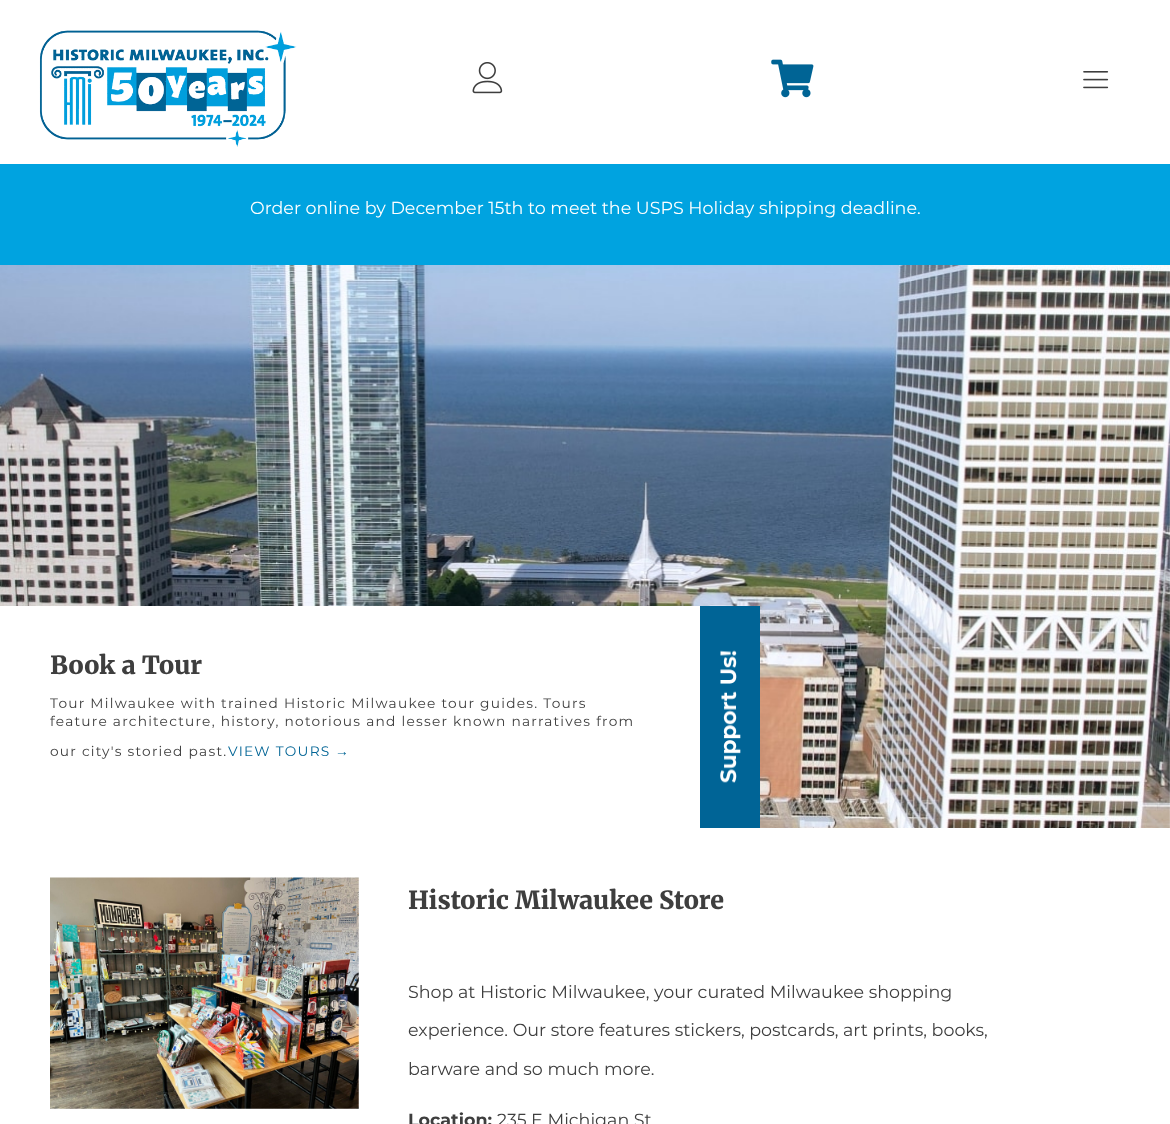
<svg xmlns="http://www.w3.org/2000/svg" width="1170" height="1124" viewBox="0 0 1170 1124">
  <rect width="100%" height="100%" fill="#ffffff"/>
  <image x="39" y="30" width="258" height="117" href="img1.png"/>
  <image x="472" y="62" width="31" height="32" href="img2.png"/>
  <image x="771" y="59" width="43" height="39" href="img3.png"/>
  <image x="1083" y="71" width="26" height="18" href="img4.png"/>
  <rect x="0" y="164" width="1170" height="101" fill="#00a3e0"/>
  <text x="250" y="214" font-family="Montserrat" font-size="17.5" fill="#ffffff">Order online by December 15th to meet the USPS Holiday shipping deadline.</text>
  <image x="0" y="265" width="1170" height="563" href="img5.png"/>
  <rect x="0" y="606" width="700" height="222" fill="#ffffff"/>
  <text x="50" y="674" font-family="Merriweather" font-size="25" font-weight="300" fill="#3e3e3e">Book a Tour</text>
  <text x="50" y="708" font-family="Montserrat" font-size="13.75" letter-spacing="1.25" fill="#3e3e3e">Tour Milwaukee with trained Historic Milwaukee tour guides. Tours</text>
  <text x="50" y="726" font-family="Montserrat" font-size="13.75" letter-spacing="1.25" fill="#3e3e3e">feature architecture, history, notorious and lesser known narratives from</text>
  <text x="50" y="756" font-family="Montserrat" font-size="13.75" letter-spacing="1.25" fill="#3e3e3e">our city's storied past.</text>
  <text x="228" y="756" font-family="Montserrat" font-size="13.75" letter-spacing="1.25" fill="#006495">VIEW TOURS</text>
  <text x="335" y="756" font-family="Liberation Sans" font-size="13.75" letter-spacing="1.25" fill="#006495">→</text>
  <rect x="700" y="606" width="60" height="222" fill="#006496"/>
  <image x="720" y="650" width="21" height="133" href="img6.png"/>
  <image x="50" y="877" width="309" height="232" href="img7.png"/>
  <text x="408" y="909" font-family="Merriweather" font-size="25" font-weight="300" fill="#3e3e3e">Historic Milwaukee Store</text>
  <text x="408" y="998" font-family="Montserrat" font-size="17.5" fill="#3e3e3e">Shop at Historic Milwaukee, your curated Milwaukee shopping</text>
  <text x="408" y="1036" font-family="Montserrat" font-size="17.5" fill="#3e3e3e">experience. Our store features stickers, postcards, art prints, books,</text>
  <text x="408" y="1075" font-family="Montserrat" font-size="17.5" fill="#3e3e3e">barware and so much more.</text>
  <text x="408" y="1126" font-family="Montserrat" font-size="17.5" font-weight="bold" fill="#3e3e3e">Location:</text>
  <text x="497" y="1126" font-family="Montserrat" font-size="17.5" fill="#3e3e3e">235 E Michigan St</text>
</svg>
